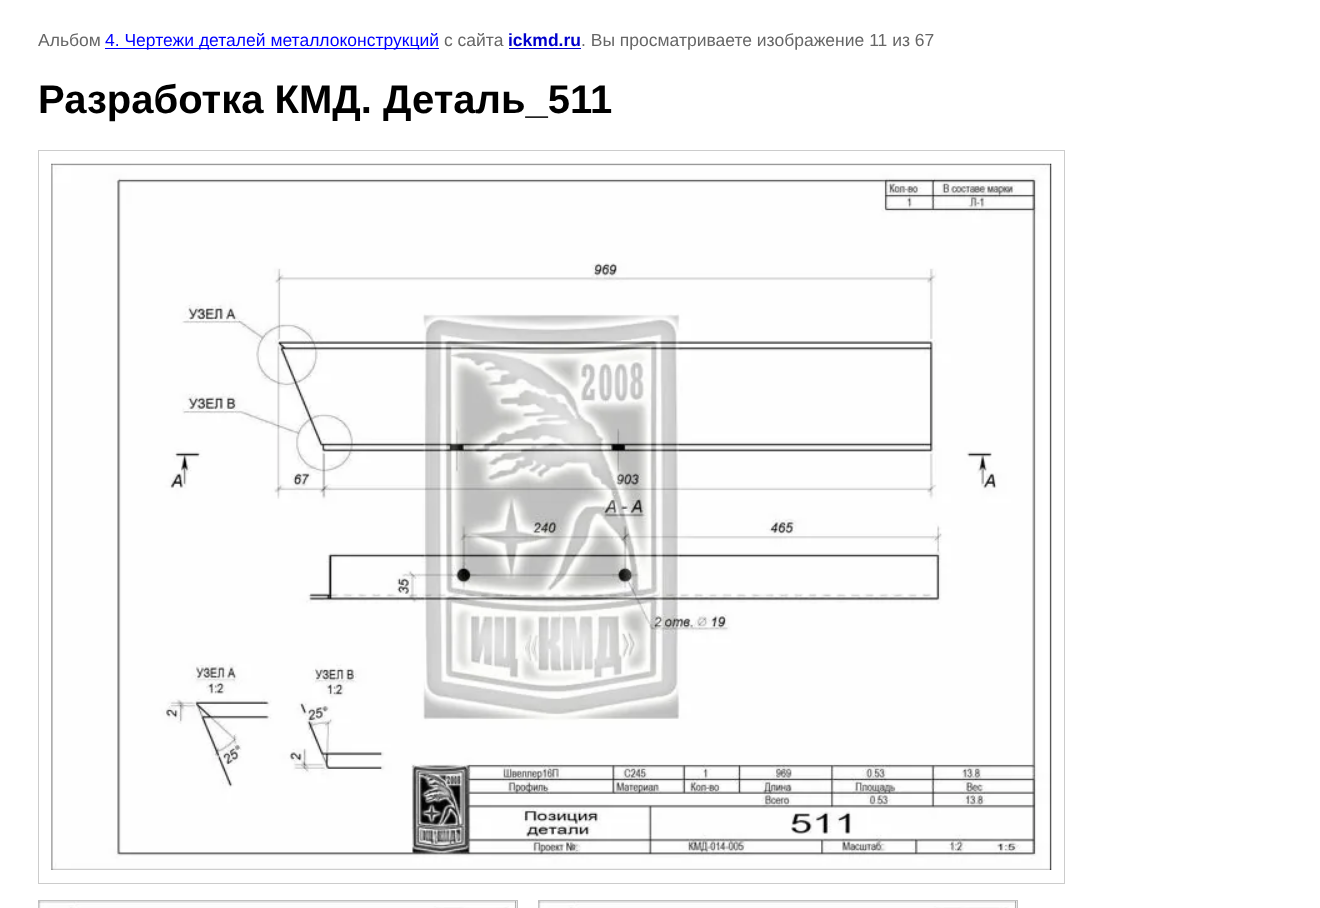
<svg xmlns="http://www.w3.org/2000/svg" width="1320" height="908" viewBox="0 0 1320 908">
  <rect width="100%" height="100%" fill="#ffffff"/>
  <text x="38" y="46" font-family="Liberation Sans" font-size="17.5" fill="#666666">Альбом</text>
  <rect x="105" y="48" width="334" height="1" fill="#0000ff"/>
  <text x="105" y="46" font-family="Liberation Sans" font-size="17.5" fill="#0000ff">4. Чертежи деталей металлоконструкций</text>
  <text x="444" y="46" font-family="Liberation Sans" font-size="17.5" fill="#666666">с сайта</text>
  <text x="508" y="46" font-family="Liberation Sans" font-size="17.5" font-weight="bold" fill="#0000cc">ickmd.ru</text>
  <rect x="509" y="48" width="72" height="1" fill="#0000cc"/>
  <text x="581" y="46" font-family="Liberation Sans" font-size="17.5" fill="#666666">. Вы просматриваете изображение 11 из 67</text>
  <text x="38" y="113" font-family="Liberation Sans" font-size="40" font-weight="bold" fill="#000000">Разработка КМД. Деталь_511</text>
  <rect x="38.5" y="150.5" width="1026" height="733" fill="none" stroke="#cccccc"/>
  <image x="51" y="163" width="1001" height="707" href="img1.png"/>
  <rect x="38.5" y="900.5" width="479" height="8" fill="none" stroke="#c0c0c0"/>
  <image x="38" y="901" width="479" height="7" href="img2.png"/>
  <rect x="538.5" y="900.5" width="479" height="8" fill="none" stroke="#c0c0c0"/>
  <image x="538" y="901" width="479" height="7" href="img3.png"/>
</svg>
